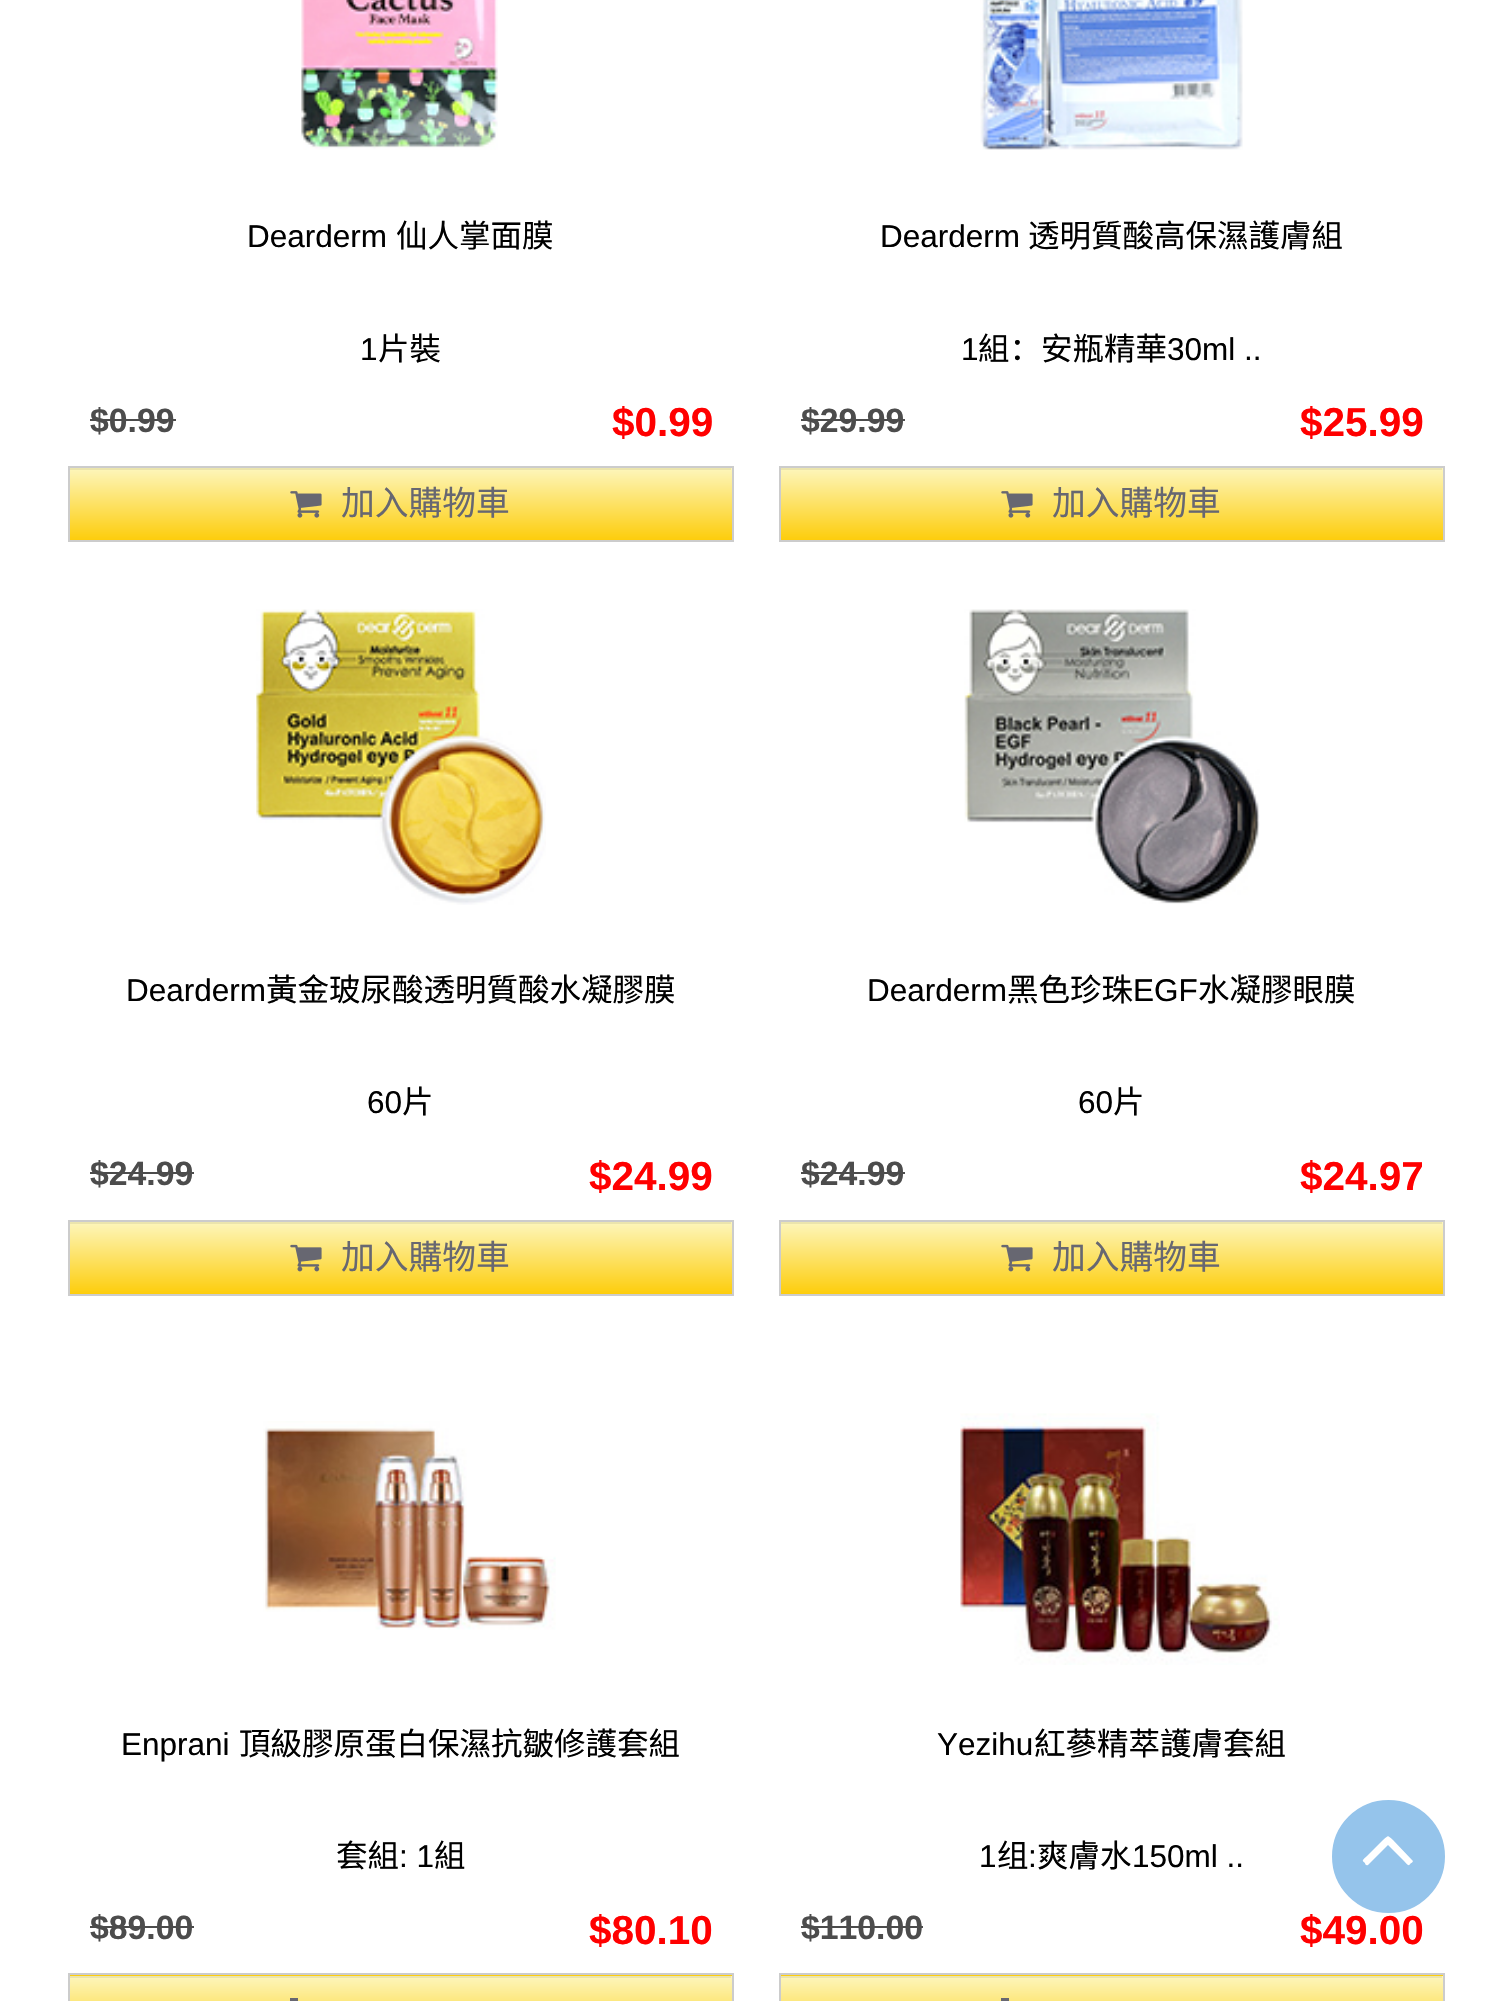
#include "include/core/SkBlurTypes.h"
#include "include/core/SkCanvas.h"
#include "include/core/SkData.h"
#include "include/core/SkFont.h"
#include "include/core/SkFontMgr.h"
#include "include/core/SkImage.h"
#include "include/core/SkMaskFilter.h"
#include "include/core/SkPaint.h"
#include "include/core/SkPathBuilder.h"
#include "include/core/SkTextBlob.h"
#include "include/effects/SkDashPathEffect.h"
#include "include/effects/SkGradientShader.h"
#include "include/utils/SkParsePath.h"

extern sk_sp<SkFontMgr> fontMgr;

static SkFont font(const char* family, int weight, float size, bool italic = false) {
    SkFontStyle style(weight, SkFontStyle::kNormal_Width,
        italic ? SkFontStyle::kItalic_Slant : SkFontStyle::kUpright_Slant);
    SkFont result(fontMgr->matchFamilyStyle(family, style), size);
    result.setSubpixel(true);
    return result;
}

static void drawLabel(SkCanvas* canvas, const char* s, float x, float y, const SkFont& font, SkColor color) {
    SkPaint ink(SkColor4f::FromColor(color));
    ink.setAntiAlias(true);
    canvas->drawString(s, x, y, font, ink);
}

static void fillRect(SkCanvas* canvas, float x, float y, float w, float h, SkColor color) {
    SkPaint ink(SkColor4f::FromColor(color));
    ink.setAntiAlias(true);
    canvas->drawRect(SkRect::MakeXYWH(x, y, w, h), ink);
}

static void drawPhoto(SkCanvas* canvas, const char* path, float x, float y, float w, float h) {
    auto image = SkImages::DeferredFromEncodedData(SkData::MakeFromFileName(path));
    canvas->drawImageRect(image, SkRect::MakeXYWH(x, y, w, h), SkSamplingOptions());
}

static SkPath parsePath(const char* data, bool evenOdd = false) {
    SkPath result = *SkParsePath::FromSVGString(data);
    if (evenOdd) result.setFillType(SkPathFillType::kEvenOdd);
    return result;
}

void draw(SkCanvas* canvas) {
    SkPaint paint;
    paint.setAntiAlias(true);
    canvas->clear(0xFFFFFFFF);
    drawPhoto(canvas, "assets/img1.png", 301, 0, 197, 150);
    SkFont font1 = font("Liberation Sans", 400, 31.5f);
    drawLabel(canvas, "Dearderm", 247, 247, font1, 0xFF000000);
    SkFont font2 = font("Noto Sans CJK SC", 400, 31.5f);
    drawLabel(canvas, "仙人掌面膜", 396, 247, font2, 0xFF000000);
    drawLabel(canvas, "1", 360, 360, font1, 0xFF000000);
    drawLabel(canvas, "片裝", 378, 360, font2, 0xFF000000);
    SkFont font3 = font("Liberation Sans", 700, 33.75f);
    drawLabel(canvas, "$0.99", 90, 432, font3, 0xFF4C4C4C);
    fillRect(canvas, 90, 419, 86, 2, 0xFF4C4C4C);
    SkFont font4 = font("Liberation Sans", 700, 40.5f);
    drawLabel(canvas, "$0.99", 612, 436, font4, 0xFFFF0000);
    {
        const SkColor colors[] = {0xFFFDF6BC, 0xFFFDCD0C};
        const float stops[] = {0, 1};
        const SkPoint ends[] = {{401, 468}, {401, 540}};
        paint.setShader(SkGradientShader::MakeLinear(ends, colors, stops, 2, SkTileMode::kClamp));
        paint.setAlpha(255);
    }
    canvas->drawRect(SkRect::MakeXYWH(70, 468, 662, 72), paint);
    {
        const SkColor colors[] = {0xFFEBE5AF, 0xFFEBBF0B};
        const float stops[] = {0, 1};
        const SkPoint ends[] = {{401, 468}, {401, 540}};
        paint.setShader(SkGradientShader::MakeLinear(ends, colors, stops, 2, SkTileMode::kClamp));
        paint.setAlpha(255);
    }
    canvas->drawRect(SkRect::MakeXYWH(70, 468, 661, 2), paint);
    paint.setStroke(true);
    paint.setStrokeWidth(2);
    paint.setShader(nullptr);
    paint.setColor(0xFFCCCCCC);
    canvas->drawRect(SkRect::MakeXYWH(69, 467, 664, 74), paint);
    drawPhoto(canvas, "assets/img2.png", 290, 491, 32, 27);
    SkFont font5 = font("Noto Sans CJK SC", 400, 33.75f);
    drawLabel(canvas, "加入購物車", 341, 515, font5, 0xFF676771);
    drawPhoto(canvas, "assets/img3.png", 980, 0, 263, 150);
    drawLabel(canvas, "Dearderm", 880, 247, font1, 0xFF000000);
    drawLabel(canvas, "透明質酸高保濕護膚組", 1028, 247, font2, 0xFF000000);
    drawLabel(canvas, "1", 961, 360, font1, 0xFF000000);
    drawLabel(canvas, "組：安瓶精華", 978, 360, font2, 0xFF000000);
    drawLabel(canvas, "30ml ..", 1167, 360, font1, 0xFF000000);
    drawLabel(canvas, "$29.99", 801, 432, font3, 0xFF4C4C4C);
    fillRect(canvas, 801, 419, 104, 2, 0xFF4C4C4C);
    drawLabel(canvas, "$25.99", 1300, 436, font4, 0xFFFF0000);
    paint.setStroke(false);
    {
        const SkColor colors[] = {0xFFFDF6BC, 0xFFFDCD0C};
        const float stops[] = {0, 1};
        const SkPoint ends[] = {{1112, 468}, {1112, 540}};
        paint.setShader(SkGradientShader::MakeLinear(ends, colors, stops, 2, SkTileMode::kClamp));
        paint.setAlpha(255);
    }
    canvas->drawRect(SkRect::MakeXYWH(781, 468, 662, 72), paint);
    {
        const SkColor colors[] = {0xFFEBE5AF, 0xFFEBBF0B};
        const float stops[] = {0, 1};
        const SkPoint ends[] = {{1112, 468}, {1112, 540}};
        paint.setShader(SkGradientShader::MakeLinear(ends, colors, stops, 2, SkTileMode::kClamp));
        paint.setAlpha(255);
    }
    canvas->drawRect(SkRect::MakeXYWH(781, 468, 661, 2), paint);
    paint.setStroke(true);
    paint.setShader(nullptr);
    paint.setColor(0xFFCCCCCC);
    canvas->drawRect(SkRect::MakeXYWH(780, 467, 664, 74), paint);
    drawPhoto(canvas, "assets/img2.png", 1001, 491, 32, 27);
    drawLabel(canvas, "加入購物車", 1052, 515, font5, 0xFF676771);
    drawPhoto(canvas, "assets/img4.png", 256, 609, 290, 296);
    drawLabel(canvas, "Dearderm", 126, 1001, font1, 0xFF000000);
    drawLabel(canvas, "黃金玻尿酸透明質酸水凝膠膜", 266, 1001, font2, 0xFF000000);
    drawLabel(canvas, "60", 367, 1113, font1, 0xFF000000);
    drawLabel(canvas, "片", 402, 1113, font2, 0xFF000000);
    drawLabel(canvas, "$24.99", 90, 1185, font3, 0xFF4C4C4C);
    fillRect(canvas, 90, 1172, 104, 2, 0xFF4C4C4C);
    drawLabel(canvas, "$24.99", 589, 1190, font4, 0xFFFF0000);
    paint.setStroke(false);
    {
        const SkColor colors[] = {0xFFFDF6BC, 0xFFFDCD0C};
        const float stops[] = {0, 1};
        const SkPoint ends[] = {{401, 1222}, {401, 1294}};
        paint.setShader(SkGradientShader::MakeLinear(ends, colors, stops, 2, SkTileMode::kClamp));
        paint.setAlpha(255);
    }
    canvas->drawRect(SkRect::MakeXYWH(70, 1222, 662, 72), paint);
    {
        const SkColor colors[] = {0xFFEBE5AF, 0xFFEBBF0B};
        const float stops[] = {0, 1};
        const SkPoint ends[] = {{401, 1222}, {401, 1294}};
        paint.setShader(SkGradientShader::MakeLinear(ends, colors, stops, 2, SkTileMode::kClamp));
        paint.setAlpha(255);
    }
    canvas->drawRect(SkRect::MakeXYWH(70, 1222, 661, 2), paint);
    paint.setStroke(true);
    paint.setShader(nullptr);
    paint.setColor(0xFFCCCCCC);
    canvas->drawRect(SkRect::MakeXYWH(69, 1221, 664, 74), paint);
    drawPhoto(canvas, "assets/img5.png", 290, 1244, 32, 28);
    drawLabel(canvas, "加入購物車", 341, 1269, font5, 0xFF676771);
    drawPhoto(canvas, "assets/img6.png", 964, 609, 296, 295);
    drawLabel(canvas, "Dearderm", 867, 1001, font1, 0xFF000000);
    drawLabel(canvas, "黑色珍珠", 1007, 1001, font2, 0xFF000000);
    drawLabel(canvas, "EGF", 1133, 1001, font1, 0xFF000000);
    drawLabel(canvas, "水凝膠眼膜", 1198, 1001, font2, 0xFF000000);
    drawLabel(canvas, "60", 1078, 1113, font1, 0xFF000000);
    drawLabel(canvas, "片", 1113, 1113, font2, 0xFF000000);
    drawLabel(canvas, "$24.99", 801, 1185, font3, 0xFF4C4C4C);
    fillRect(canvas, 801, 1172, 104, 2, 0xFF4C4C4C);
    drawLabel(canvas, "$24.97", 1300, 1190, font4, 0xFFFF0000);
    paint.setStroke(false);
    {
        const SkColor colors[] = {0xFFFDF6BC, 0xFFFDCD0C};
        const float stops[] = {0, 1};
        const SkPoint ends[] = {{1112, 1222}, {1112, 1294}};
        paint.setShader(SkGradientShader::MakeLinear(ends, colors, stops, 2, SkTileMode::kClamp));
        paint.setAlpha(255);
    }
    canvas->drawRect(SkRect::MakeXYWH(781, 1222, 662, 72), paint);
    {
        const SkColor colors[] = {0xFFEBE5AF, 0xFFEBBF0B};
        const float stops[] = {0, 1};
        const SkPoint ends[] = {{1112, 1222}, {1112, 1294}};
        paint.setShader(SkGradientShader::MakeLinear(ends, colors, stops, 2, SkTileMode::kClamp));
        paint.setAlpha(255);
    }
    canvas->drawRect(SkRect::MakeXYWH(781, 1222, 661, 2), paint);
    paint.setStroke(true);
    paint.setShader(nullptr);
    paint.setColor(0xFFCCCCCC);
    canvas->drawRect(SkRect::MakeXYWH(780, 1221, 664, 74), paint);
    drawPhoto(canvas, "assets/img5.png", 1001, 1244, 32, 28);
    drawLabel(canvas, "加入購物車", 1052, 1269, font5, 0xFF676771);
    drawPhoto(canvas, "assets/img7.png", 263, 1421, 293, 209);
    drawLabel(canvas, "Enprani", 121, 1755, font1, 0xFF000000);
    drawLabel(canvas, "頂級膠原蛋白保濕抗皺修護套組", 239, 1755, font2, 0xFF000000);
    drawLabel(canvas, "套組", 336, 1867, font2, 0xFF000000);
    drawLabel(canvas, ": 1", 399, 1867, font1, 0xFF000000);
    drawLabel(canvas, "組", 434, 1867, font2, 0xFF000000);
    drawLabel(canvas, "$89.00", 90, 1939, font3, 0xFF4C4C4C);
    fillRect(canvas, 90, 1926, 104, 2, 0xFF4C4C4C);
    drawLabel(canvas, "$80.10", 589, 1944, font4, 0xFFFF0000);
    paint.setStroke(false);
    {
        const SkColor colors[] = {0xFFFDF6BC, 0xFFFDCD0C};
        const float stops[] = {0, 1};
        const SkPoint ends[] = {{401, 1904}, {401, 1976}};
        paint.setShader(SkGradientShader::MakeLinear(ends, colors, stops, 2, SkTileMode::kClamp));
        paint.setAlpha(255);
    }
    canvas->drawRect(SkRect::MakeXYWH(68, 1975, 666, 1), paint);
    {
        const SkColor colors[] = {0xFFFDF6BC, 0xFFFDCD0C};
        const float stops[] = {0, 1};
        const SkPoint ends[] = {{401, 1976}, {401, 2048}};
        paint.setShader(SkGradientShader::MakeLinear(ends, colors, stops, 2, SkTileMode::kClamp));
        paint.setAlpha(255);
    }
    canvas->drawRect(SkRect::MakeXYWH(70, 1976, 662, 25), paint);
    {
        const SkColor colors[] = {0xFFEBE5AF, 0xFFEBBF0B};
        const float stops[] = {0, 1};
        const SkPoint ends[] = {{401, 1976}, {401, 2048}};
        paint.setShader(SkGradientShader::MakeLinear(ends, colors, stops, 2, SkTileMode::kClamp));
        paint.setAlpha(255);
    }
    canvas->drawRect(SkRect::MakeXYWH(70, 1976, 661, 2), paint);
    paint.setStroke(true);
    paint.setShader(nullptr);
    paint.setColor(0xFFCCCCCC);
    canvas->drawRect(SkRect::MakeXYWH(69, 1974, 664, 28), paint);
    fillRect(canvas, 290, 1998, 8, 3, 0xFF676771);
    drawPhoto(canvas, "assets/img8.png", 960, 1413, 320, 252);
    drawLabel(canvas, "Yezihu", 937, 1755, font1, 0xFF000000);
    drawLabel(canvas, "紅蔘精萃護膚套組", 1034, 1755, font2, 0xFF000000);
    drawLabel(canvas, "1", 979, 1867, font1, 0xFF000000);
    drawLabel(canvas, "组", 997, 1867, font2, 0xFF000000);
    drawLabel(canvas, ":", 1028, 1867, font1, 0xFF000000);
    drawLabel(canvas, "爽膚水", 1037, 1867, font2, 0xFF000000);
    drawLabel(canvas, "150ml ..", 1132, 1867, font1, 0xFF000000);
    drawLabel(canvas, "$110.00", 801, 1939, font3, 0xFF4C4C4C);
    fillRect(canvas, 801, 1926, 122, 2, 0xFF4C4C4C);
    drawLabel(canvas, "$49.00", 1300, 1944, font4, 0xFFFF0000);
    paint.setStroke(false);
    {
        const SkColor colors[] = {0xFFFDF6BC, 0xFFFDCD0C};
        const float stops[] = {0, 1};
        const SkPoint ends[] = {{1112, 1904}, {1112, 1976}};
        paint.setShader(SkGradientShader::MakeLinear(ends, colors, stops, 2, SkTileMode::kClamp));
        paint.setAlpha(255);
    }
    canvas->drawRect(SkRect::MakeXYWH(779, 1975, 666, 1), paint);
    {
        const SkColor colors[] = {0xFFFDF6BC, 0xFFFDCD0C};
        const float stops[] = {0, 1};
        const SkPoint ends[] = {{1112, 1976}, {1112, 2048}};
        paint.setShader(SkGradientShader::MakeLinear(ends, colors, stops, 2, SkTileMode::kClamp));
        paint.setAlpha(255);
    }
    canvas->drawRect(SkRect::MakeXYWH(781, 1976, 662, 25), paint);
    {
        const SkColor colors[] = {0xFFEBE5AF, 0xFFEBBF0B};
        const float stops[] = {0, 1};
        const SkPoint ends[] = {{1112, 1976}, {1112, 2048}};
        paint.setShader(SkGradientShader::MakeLinear(ends, colors, stops, 2, SkTileMode::kClamp));
        paint.setAlpha(255);
    }
    canvas->drawRect(SkRect::MakeXYWH(781, 1976, 661, 2), paint);
    paint.setStroke(true);
    paint.setShader(nullptr);
    paint.setColor(0xFFCCCCCC);
    canvas->drawRect(SkRect::MakeXYWH(780, 1974, 664, 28), paint);
    fillRect(canvas, 1001, 1998, 8, 3, 0xFF676771);
    paint.setStroke(false);
    paint.setColor(0xFF95C4EB);
    canvas->drawCircle(1388.5f, 1856.5f, 55.5f, paint);
    paint.setStroke(true);
    canvas->drawCircle(1388.5f, 1856.5f, 55.5f, paint);
    paint.setStroke(false);
    paint.setColor(0xFFFFFFFF);
    canvas->drawPath(parsePath("M1412 1860C1414 1861 1412 1863 1411 1863C1408 1867 1408 1865 1404 1861L1388 1845L1368 1865C1366 1866 1365 1864 1365 1863C1361 1860 1363 1860 1367 1856L1383 1840C1389 1835 1387 1835 1393 1840Z"), paint);
}
